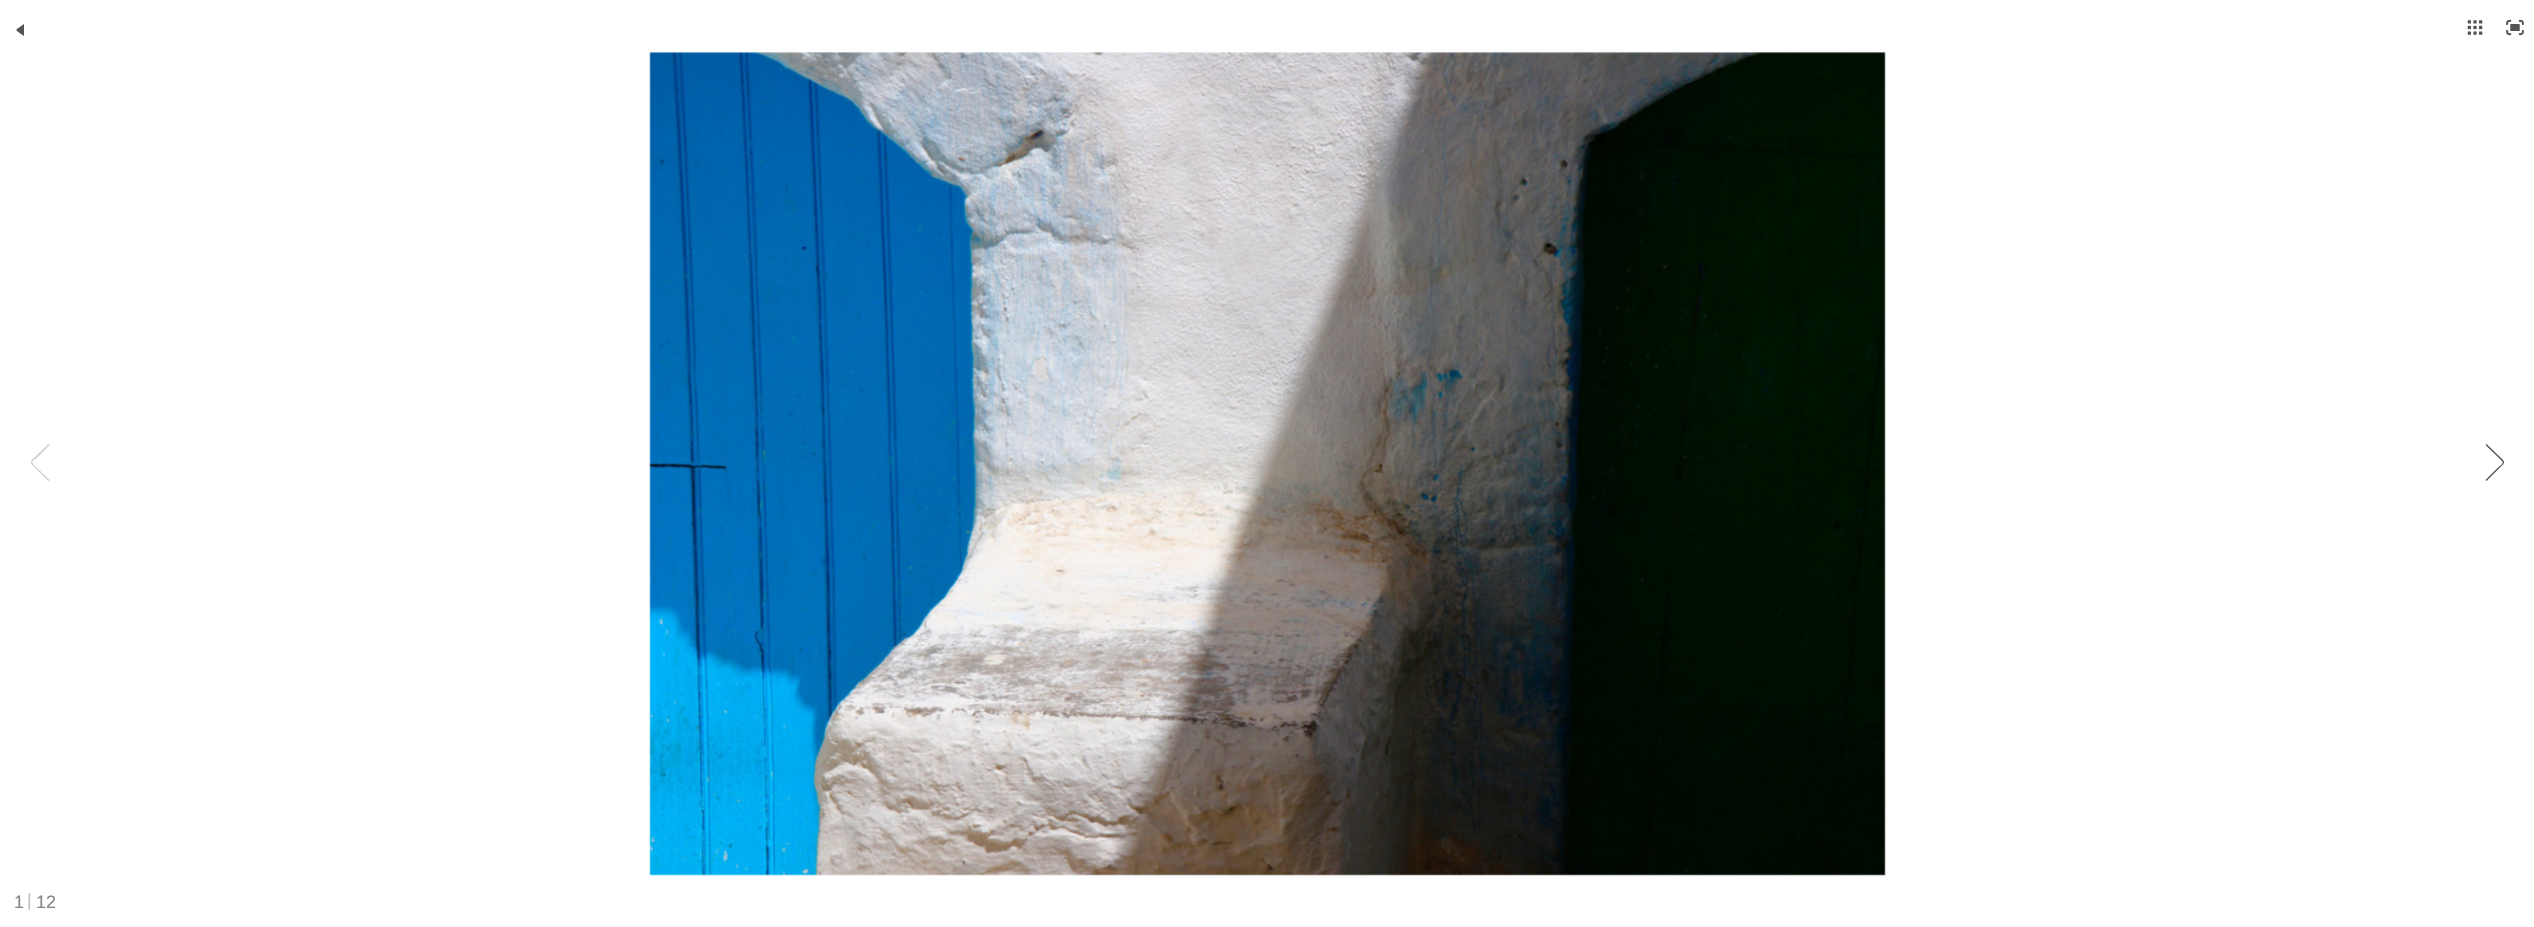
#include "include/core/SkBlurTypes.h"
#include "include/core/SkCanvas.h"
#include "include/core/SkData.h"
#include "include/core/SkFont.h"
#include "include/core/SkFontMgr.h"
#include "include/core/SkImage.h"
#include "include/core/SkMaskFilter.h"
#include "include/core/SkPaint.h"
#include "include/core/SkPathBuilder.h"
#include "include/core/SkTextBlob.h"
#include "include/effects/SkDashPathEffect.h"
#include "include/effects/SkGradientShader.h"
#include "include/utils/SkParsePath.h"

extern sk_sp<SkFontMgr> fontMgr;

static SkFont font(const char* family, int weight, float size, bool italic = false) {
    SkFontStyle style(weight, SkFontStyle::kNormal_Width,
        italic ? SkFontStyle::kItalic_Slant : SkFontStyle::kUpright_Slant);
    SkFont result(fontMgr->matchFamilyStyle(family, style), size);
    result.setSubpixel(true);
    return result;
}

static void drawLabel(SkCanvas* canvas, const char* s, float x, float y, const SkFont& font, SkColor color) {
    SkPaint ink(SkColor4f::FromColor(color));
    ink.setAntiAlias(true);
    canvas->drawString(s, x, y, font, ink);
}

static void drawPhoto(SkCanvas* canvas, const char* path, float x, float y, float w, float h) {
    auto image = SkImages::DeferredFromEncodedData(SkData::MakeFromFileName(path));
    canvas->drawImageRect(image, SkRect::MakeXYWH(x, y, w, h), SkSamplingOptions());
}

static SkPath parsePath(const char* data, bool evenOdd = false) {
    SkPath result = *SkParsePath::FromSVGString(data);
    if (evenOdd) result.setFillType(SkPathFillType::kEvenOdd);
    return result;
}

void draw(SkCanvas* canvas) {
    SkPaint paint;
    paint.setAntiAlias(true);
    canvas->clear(0xFFFFFFFF);
    paint.setColor(0xFF555555);
    canvas->drawPath(parsePath("M24 36C14 28.5 14 31.5 24 24Z"), paint);
    drawPhoto(canvas, "assets/img1.png", 2467, 20, 16, 15);
    drawPhoto(canvas, "assets/img2.png", 2506, 19, 18, 17);
    paint.setColor(0xFFCCCCCC);
    canvas->drawPath(parsePath("M48.5 481L31.5 464C29.5 461.5 33 459 34.5 457.5L48.5 444L49.5 445L38.5 456C32 462 30 461 35.5 466.5L49.5 480Z"), paint);
    drawPhoto(canvas, "assets/img3.png", 649, 52, 1237, 824);
    paint.setColor(0xFF555555);
    canvas->drawPath(parsePath("M2486.5 444L2500.5 457.5C2502 459 2505.5 461.5 2503.5 464L2486.5 481L2485.5 480L2496.5 469C2503 463 2505 464 2499.5 458.5L2485.5 445Z"), paint);
    SkFont font1 = font("Liberation Sans", 400, 18);
    drawLabel(canvas, "1", 14, 908, font1, 0xFF858585);
    drawLabel(canvas, "|", 27, 906, font1, 0xFFC2C2C2);
    drawLabel(canvas, "12", 36, 908, font1, 0xFF858585);
}
